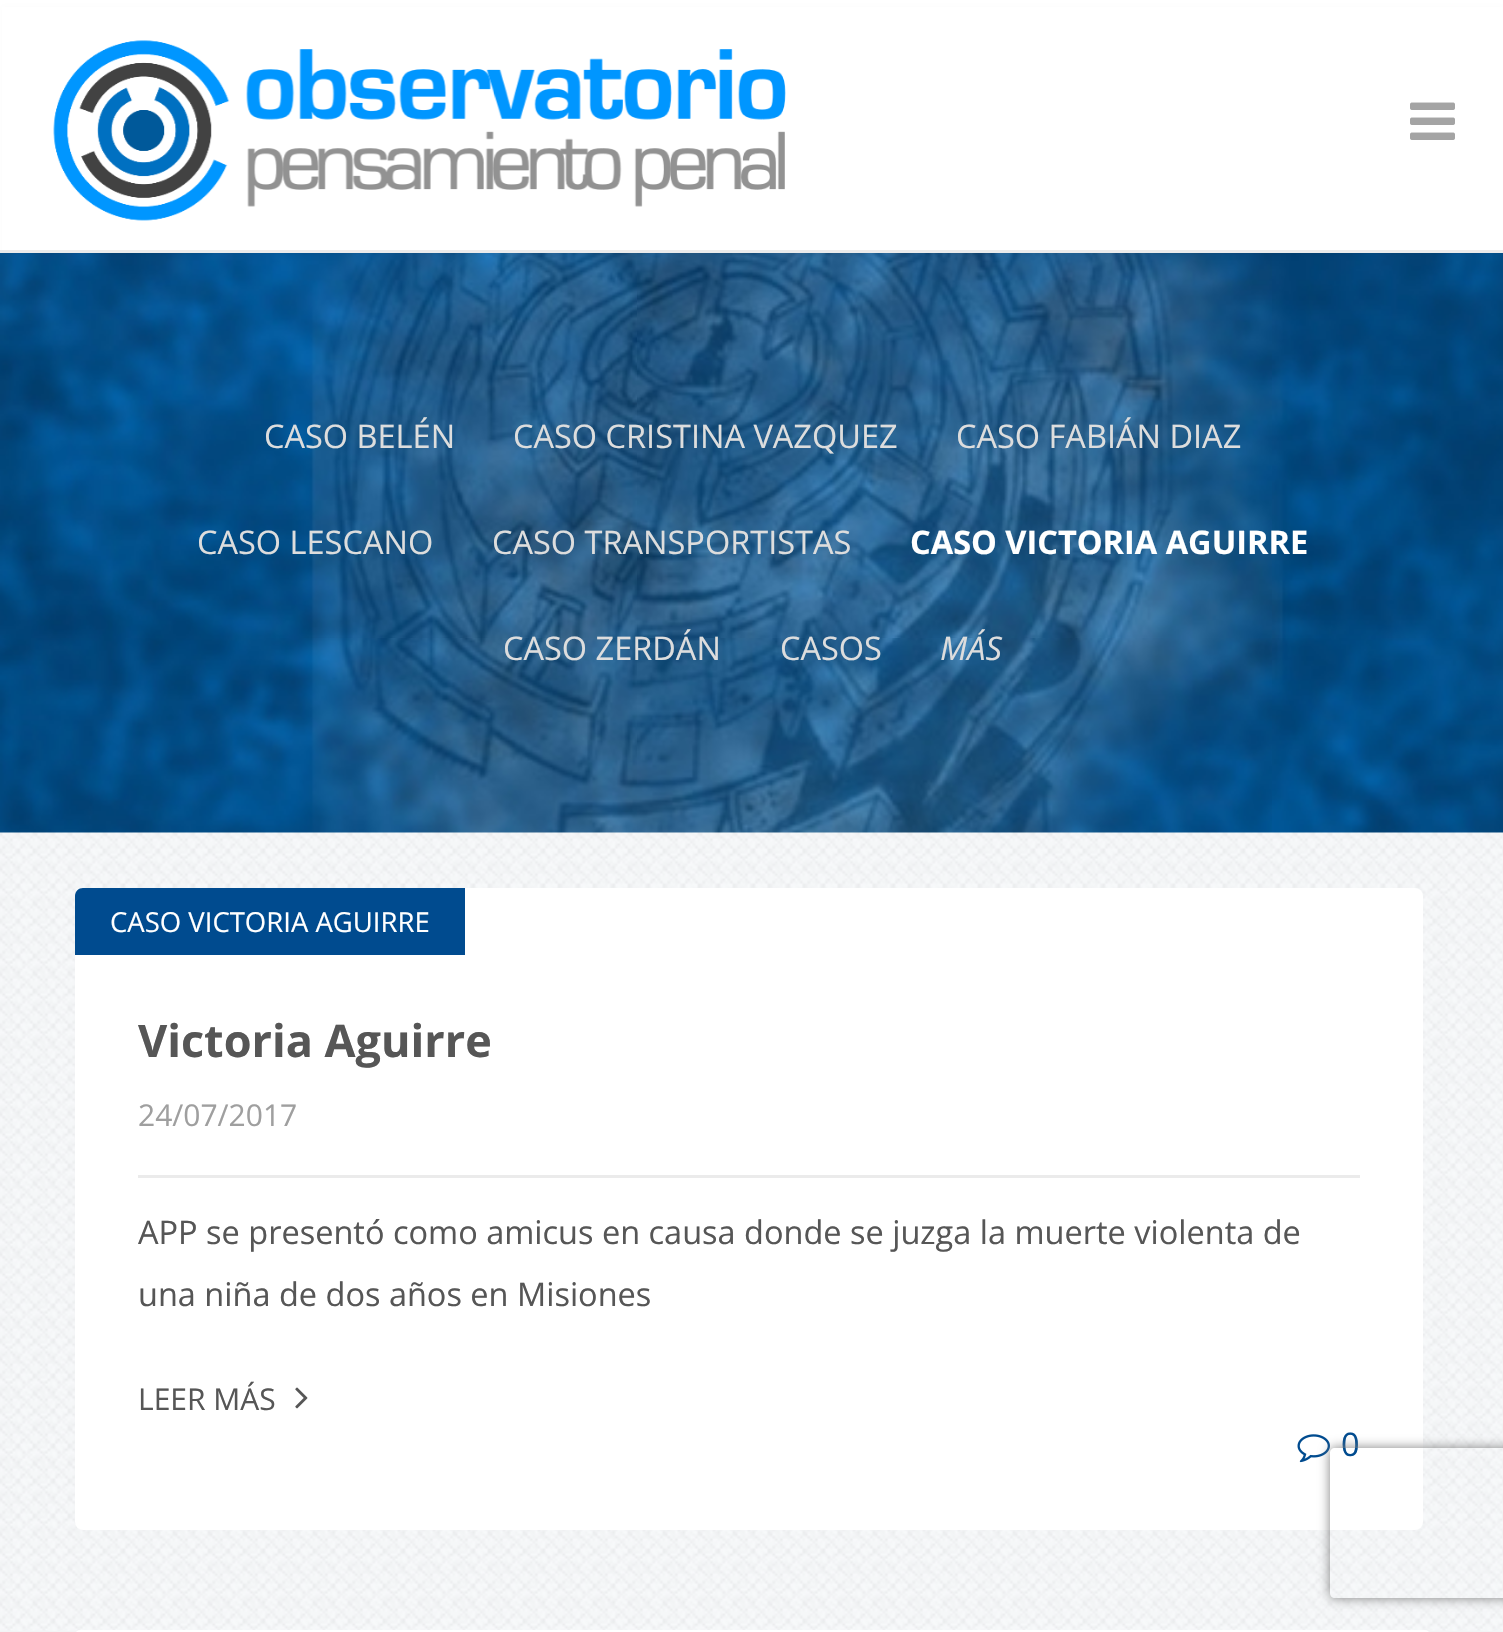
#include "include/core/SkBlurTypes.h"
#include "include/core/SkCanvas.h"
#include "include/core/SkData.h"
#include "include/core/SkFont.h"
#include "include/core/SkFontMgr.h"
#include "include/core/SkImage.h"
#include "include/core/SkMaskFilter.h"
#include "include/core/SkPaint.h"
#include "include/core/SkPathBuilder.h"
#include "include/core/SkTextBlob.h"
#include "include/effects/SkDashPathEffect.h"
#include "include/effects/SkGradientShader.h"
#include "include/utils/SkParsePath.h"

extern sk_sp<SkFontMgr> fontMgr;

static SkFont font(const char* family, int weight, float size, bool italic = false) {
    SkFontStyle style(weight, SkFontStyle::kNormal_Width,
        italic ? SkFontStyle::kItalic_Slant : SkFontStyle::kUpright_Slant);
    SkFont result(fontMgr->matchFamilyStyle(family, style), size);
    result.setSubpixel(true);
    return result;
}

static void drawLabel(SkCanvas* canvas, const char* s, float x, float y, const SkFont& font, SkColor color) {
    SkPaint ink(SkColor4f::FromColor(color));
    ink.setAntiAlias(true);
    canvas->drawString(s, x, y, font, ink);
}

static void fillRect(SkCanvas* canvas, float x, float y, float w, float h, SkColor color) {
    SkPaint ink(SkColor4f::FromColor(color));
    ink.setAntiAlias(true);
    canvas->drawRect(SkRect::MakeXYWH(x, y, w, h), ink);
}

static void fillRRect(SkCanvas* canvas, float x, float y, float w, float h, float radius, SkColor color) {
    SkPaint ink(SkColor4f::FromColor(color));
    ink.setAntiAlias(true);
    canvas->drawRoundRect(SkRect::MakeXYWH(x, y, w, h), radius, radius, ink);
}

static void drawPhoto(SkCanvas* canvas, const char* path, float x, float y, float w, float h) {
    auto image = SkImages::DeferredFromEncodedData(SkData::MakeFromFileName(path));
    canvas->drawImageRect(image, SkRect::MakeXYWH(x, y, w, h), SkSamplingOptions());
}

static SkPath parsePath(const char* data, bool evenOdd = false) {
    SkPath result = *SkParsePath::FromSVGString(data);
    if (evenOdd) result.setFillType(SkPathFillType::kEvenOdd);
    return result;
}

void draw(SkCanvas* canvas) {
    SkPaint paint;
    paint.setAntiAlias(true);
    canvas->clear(0xFFFFFFFF);
    drawPhoto(canvas, "assets/img3.png", 0, 253, 1503, 580);
    paint.setColor(0x14000000);
    paint.setMaskFilter(SkMaskFilter::MakeBlur(kNormal_SkBlurStyle, 2.5f));
    canvas->drawRect(SkRect::MakeXYWH(5, 10, 1495, 243), paint);
    paint.setMaskFilter(nullptr);
    fillRect(canvas, 2, 7, 1501, 243, 0xFFFFFFFF);
    fillRect(canvas, 0, 250, 1503, 3, 0xFFEBEBEB);
    drawPhoto(canvas, "assets/img1.png", 53, 40, 733, 181);
    drawPhoto(canvas, "assets/img2.png", 1410, 102, 45, 38);
    SkFont font1 = font("Open Sans", 400, 32.5f);
    drawLabel(canvas, "CASO BELÉN", 264, 448, font1, 0xFFDDDDDD);
    drawLabel(canvas, "CASO CRISTINA VAZQUEZ", 513, 448, font1, 0xFFDDDDDD);
    drawLabel(canvas, "CASO FABIÁN DIAZ", 956, 448, font1, 0xFFDDDDDD);
    drawLabel(canvas, "CASO LESCANO", 197, 554, font1, 0xFFDDDDDD);
    drawLabel(canvas, "CASO TRANSPORTISTAS", 492, 554, font1, 0xFFDDDDDD);
    SkFont font2 = font("Open Sans", 700, 32.5f);
    drawLabel(canvas, "CASO VICTORIA AGUIRRE", 910, 554, font2, 0xFFFFFFFF);
    drawLabel(canvas, "CASO ZERDÁN", 503, 660, font1, 0xFFDDDDDD);
    drawLabel(canvas, "CASOS", 780, 660, font1, 0xFFDDDDDD);
    SkFont font3 = font("Open Sans", 400, 32.5f, true);
    drawLabel(canvas, "MÁS", 940, 660, font3, 0xFFDDDDDD);
    fillRect(canvas, 0, 1631, 1503, 1, 0xFFF2F4F5);
    drawPhoto(canvas, "assets/img4.png", 0, 832, 1503, 799);
    fillRRect(canvas, 75, 888, 1348, 642, 8, 0xFFFFFFFF);
    paint.setColor(0xFF004B8F);
    canvas->drawPath(parsePath("M83 888H465V955H75V896C75 891.5 78.5 888 83 888Z"), paint);
    SkFont font4 = font("Open Sans", 400, 27.5f);
    drawLabel(canvas, "CASO VICTORIA AGUIRRE", 110, 932, font4, 0xFFFFFFFF);
    SkFont font5 = font("Open Sans", 700, 45);
    drawLabel(canvas, "Victoria Aguirre", 138, 1057, font5, 0xFF565656);
    SkFont font6 = font("Open Sans", 400, 30);
    drawLabel(canvas, "24/07/2017", 138, 1126, font6, 0xFF9F9F9F);
    fillRect(canvas, 138, 1175, 1222, 3, 0xFFEBEBEB);
    drawLabel(canvas, "APP se presentó como amicus en causa donde se juzga la muerte violenta de", 138, 1244, font1, 0xFF565656);
    drawLabel(canvas, "una niña de dos años en Misiones", 138, 1306, font1, 0xFF565656);
    drawLabel(canvas, "LEER MÁS", 138, 1410, font6, 0xFF565656);
    drawPhoto(canvas, "assets/img5.png", 295, 1387, 13, 22);
    drawPhoto(canvas, "assets/img6.png", 1297, 1434, 33, 29);
    drawLabel(canvas, "0", 1341, 1456, font1, 0xFF004B8F);
    fillRRect(canvas, 75, 1630, 1355, 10, 8, 0xFFFFFFFF);
    canvas->save();
    canvas->clipPath(parsePath("M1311 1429H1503V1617H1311ZM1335 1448H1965C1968 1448 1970 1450 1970 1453V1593C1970 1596 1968 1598 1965 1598H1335C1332 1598 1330 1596 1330 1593V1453C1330 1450 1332 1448 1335 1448Z", true), true);
    paint.setColor(0xFF808080);
    paint.setMaskFilter(SkMaskFilter::MakeBlur(kNormal_SkBlurStyle, 6));
    canvas->drawRoundRect(SkRect::MakeXYWH(1330, 1448, 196, 150), 5, 5, paint);
    paint.setMaskFilter(nullptr);
    canvas->restore();
}
